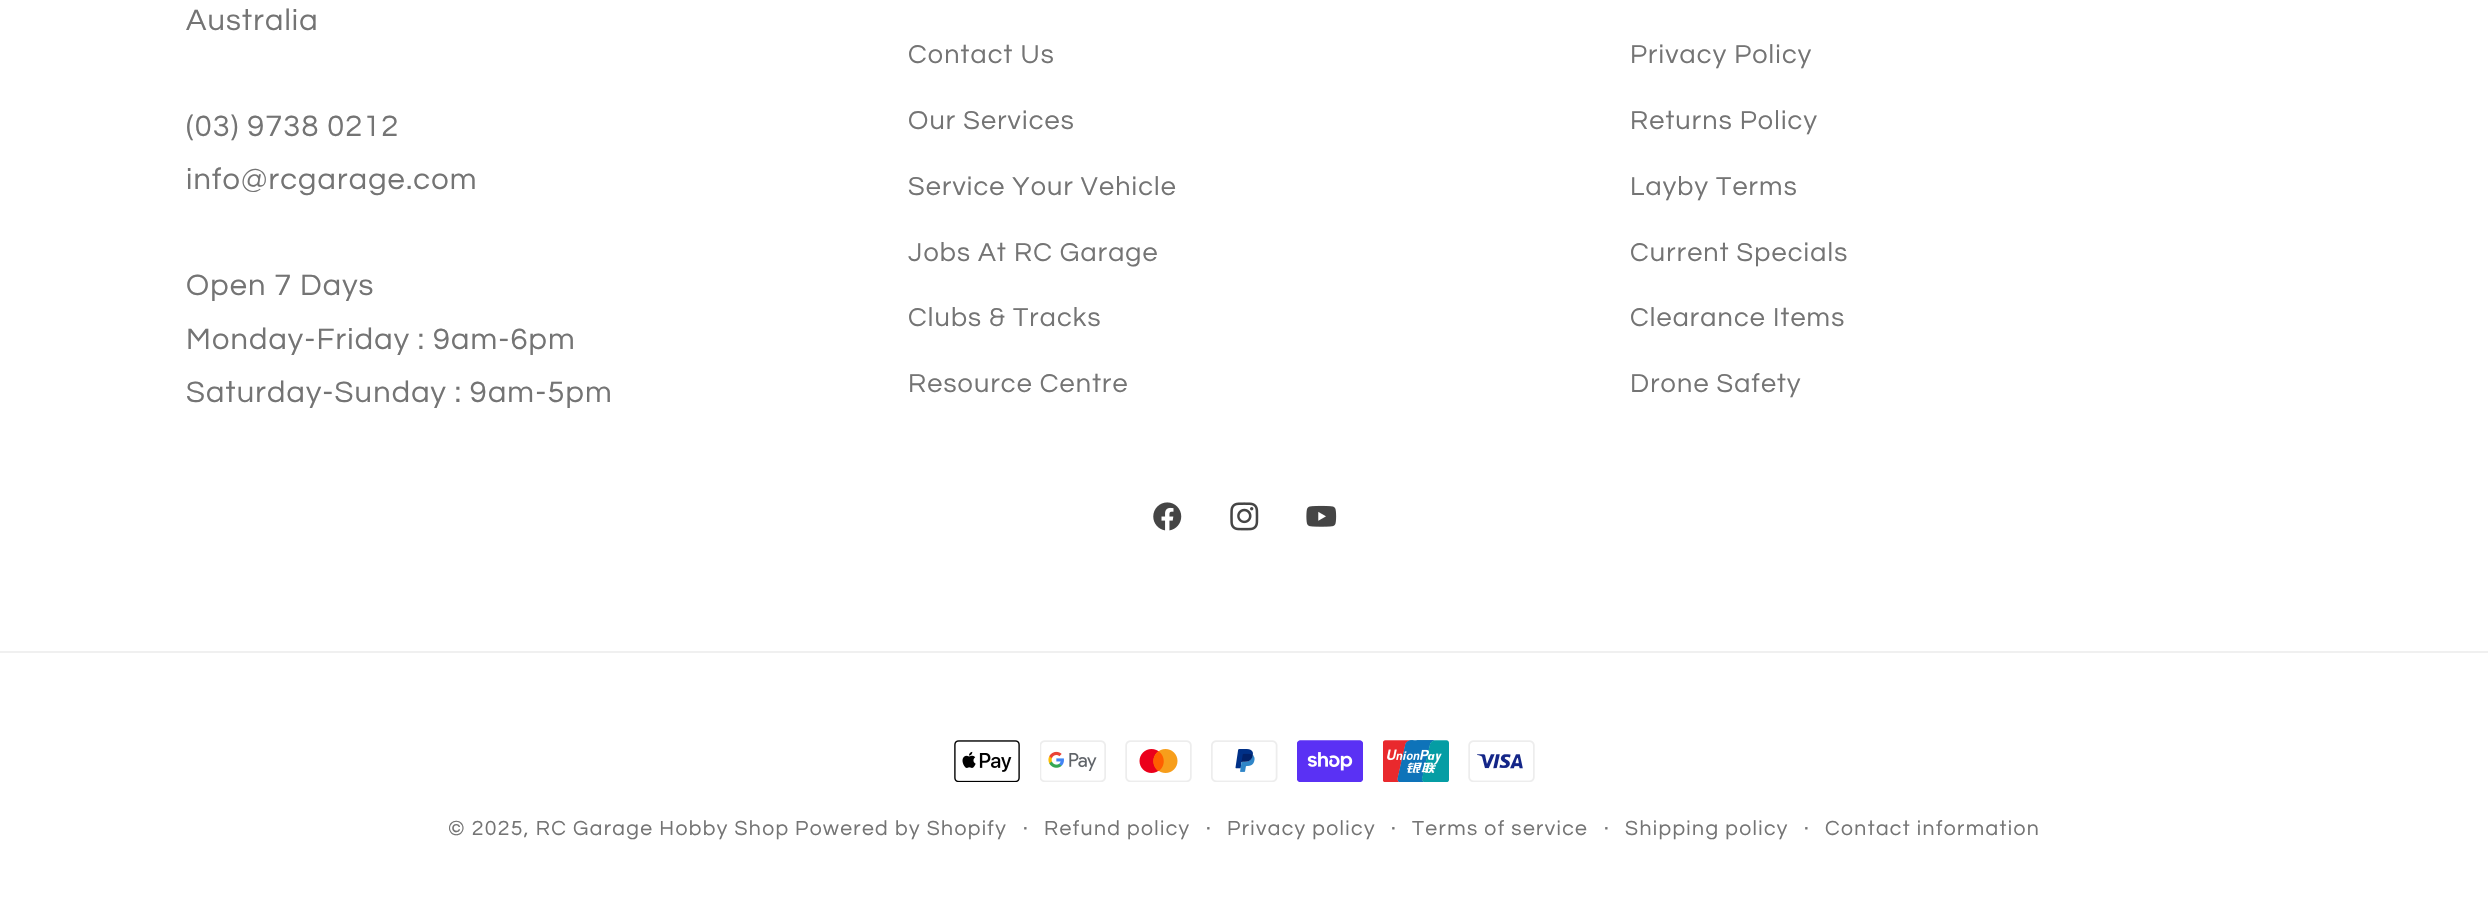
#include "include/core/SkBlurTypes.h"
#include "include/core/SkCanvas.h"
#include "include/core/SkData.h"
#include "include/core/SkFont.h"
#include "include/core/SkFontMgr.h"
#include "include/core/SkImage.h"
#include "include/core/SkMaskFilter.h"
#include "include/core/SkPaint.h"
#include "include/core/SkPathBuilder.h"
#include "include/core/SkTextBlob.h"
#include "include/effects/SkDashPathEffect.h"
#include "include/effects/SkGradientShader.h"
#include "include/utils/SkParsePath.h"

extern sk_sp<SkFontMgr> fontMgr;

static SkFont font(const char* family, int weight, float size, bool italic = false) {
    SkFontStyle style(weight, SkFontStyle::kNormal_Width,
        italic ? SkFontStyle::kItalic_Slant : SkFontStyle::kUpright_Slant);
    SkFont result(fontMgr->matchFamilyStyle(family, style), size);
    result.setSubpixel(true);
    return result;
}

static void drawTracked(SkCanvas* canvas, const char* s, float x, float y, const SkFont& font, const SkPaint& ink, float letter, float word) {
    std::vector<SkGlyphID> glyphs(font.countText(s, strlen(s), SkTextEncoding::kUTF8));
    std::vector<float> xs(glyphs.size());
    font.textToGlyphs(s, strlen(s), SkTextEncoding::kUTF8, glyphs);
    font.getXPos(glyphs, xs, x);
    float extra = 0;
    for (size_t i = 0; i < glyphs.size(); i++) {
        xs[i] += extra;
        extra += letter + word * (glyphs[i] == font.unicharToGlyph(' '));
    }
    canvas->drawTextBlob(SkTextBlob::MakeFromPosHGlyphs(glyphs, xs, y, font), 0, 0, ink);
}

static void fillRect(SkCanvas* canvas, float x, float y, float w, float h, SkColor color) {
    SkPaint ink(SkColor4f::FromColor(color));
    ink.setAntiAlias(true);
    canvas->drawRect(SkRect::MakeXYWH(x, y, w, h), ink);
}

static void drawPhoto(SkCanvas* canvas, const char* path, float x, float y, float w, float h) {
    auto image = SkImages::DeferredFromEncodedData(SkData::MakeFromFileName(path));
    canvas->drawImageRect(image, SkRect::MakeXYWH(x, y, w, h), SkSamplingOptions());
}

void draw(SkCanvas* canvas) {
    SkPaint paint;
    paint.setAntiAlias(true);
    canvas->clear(0xFFFFFFFF);
    SkFont font1 = font("Questrial", 400, 30.75f);
    paint.setColor(0xFF747474);
    drawTracked(canvas, "Australia", 186, 30, font1, paint, 1.15f, 0);
    drawTracked(canvas, "(03) 9738 0212", 186, 136, font1, paint, 1.15f, 0);
    drawTracked(canvas, "info@rcgarage.com", 186, 189, font1, paint, 1.15f, 0);
    drawTracked(canvas, "Open 7 Days", 186, 295, font1, paint, 1.15f, 0);
    drawTracked(canvas, "Monday-Friday : 9am-6pm", 186, 349, font1, paint, 1.15f, 0);
    drawTracked(canvas, "Saturday-Sunday : 9am-5pm", 186, 402, font1, paint, 1.15f, 0);
    SkFont font2 = font("Questrial", 400, 27);
    drawTracked(canvas, "Contact Us", 908, 63, font2, paint, 1.15f, 0);
    drawTracked(canvas, "Our Services", 908, 129, font2, paint, 1.15f, 0);
    drawTracked(canvas, "Service Your Vehicle", 908, 195, font2, paint, 1.15f, 0);
    drawTracked(canvas, "Jobs At RC Garage", 908, 261, font2, paint, 1.15f, 0);
    drawTracked(canvas, "Clubs & Tracks", 908, 326, font2, paint, 1.15f, 0);
    drawTracked(canvas, "Resource Centre", 908, 392, font2, paint, 1.15f, 0);
    drawTracked(canvas, "Privacy Policy", 1630, 63, font2, paint, 1.15f, 0);
    drawTracked(canvas, "Returns Policy", 1630, 129, font2, paint, 1.15f, 0);
    drawTracked(canvas, "Layby Terms", 1630, 195, font2, paint, 1.15f, 0);
    drawTracked(canvas, "Current Specials", 1630, 261, font2, paint, 1.15f, 0);
    drawTracked(canvas, "Clearance Items", 1630, 326, font2, paint, 1.15f, 0);
    drawTracked(canvas, "Drone Safety", 1630, 392, font2, paint, 1.15f, 0);
    drawPhoto(canvas, "assets/img1.png", 1153, 502, 29, 29);
    drawPhoto(canvas, "assets/img2.png", 1230, 502, 29, 29);
    drawPhoto(canvas, "assets/img3.png", 1306, 505, 31, 22);
    fillRect(canvas, 0, 651, 2488, 2, 0xFFF0F0F0);
    drawPhoto(canvas, "assets/img4.png", 954, 740, 66, 42);
    drawPhoto(canvas, "assets/img5.png", 1040, 740, 66, 42);
    drawPhoto(canvas, "assets/img6.png", 1125, 740, 67, 42);
    drawPhoto(canvas, "assets/img7.png", 1211, 740, 67, 42);
    drawPhoto(canvas, "assets/img8.png", 1297, 740, 66, 42);
    drawPhoto(canvas, "assets/img9.png", 1383, 740, 66, 42);
    drawPhoto(canvas, "assets/img10.png", 1468, 740, 67, 42);
    SkFont font3 = font("Questrial", 400, 21.2f);
    drawTracked(canvas, "© 2025, RC Garage Hobby Shop", 448, 835, font3, paint, 1.35f, 0);
    drawTracked(canvas, "Powered by Shopify", 795, 835, font3, paint, 1.35f, 0);
    SkFont font4 = font("Questrial", 400, 23);
    drawTracked(canvas, "·", 1023, 835, font4, paint, 1.35f, 0);
    drawTracked(canvas, "Refund policy", 1044, 835, font3, paint, 1.35f, 0);
    drawTracked(canvas, "·", 1206, 835, font4, paint, 1.35f, 0);
    drawTracked(canvas, "Privacy policy", 1227, 835, font3, paint, 1.35f, 0);
    drawTracked(canvas, "·", 1391, 835, font4, paint, 1.35f, 0);
    drawTracked(canvas, "Terms of service", 1412, 835, font3, paint, 1.35f, 0);
    drawTracked(canvas, "·", 1604, 835, font4, paint, 1.35f, 0);
    drawTracked(canvas, "Shipping policy", 1625, 835, font3, paint, 1.35f, 0);
    drawTracked(canvas, "·", 1804, 835, font4, paint, 1.35f, 0);
    drawTracked(canvas, "Contact information", 1825, 835, font3, paint, 1.35f, 0);
}
